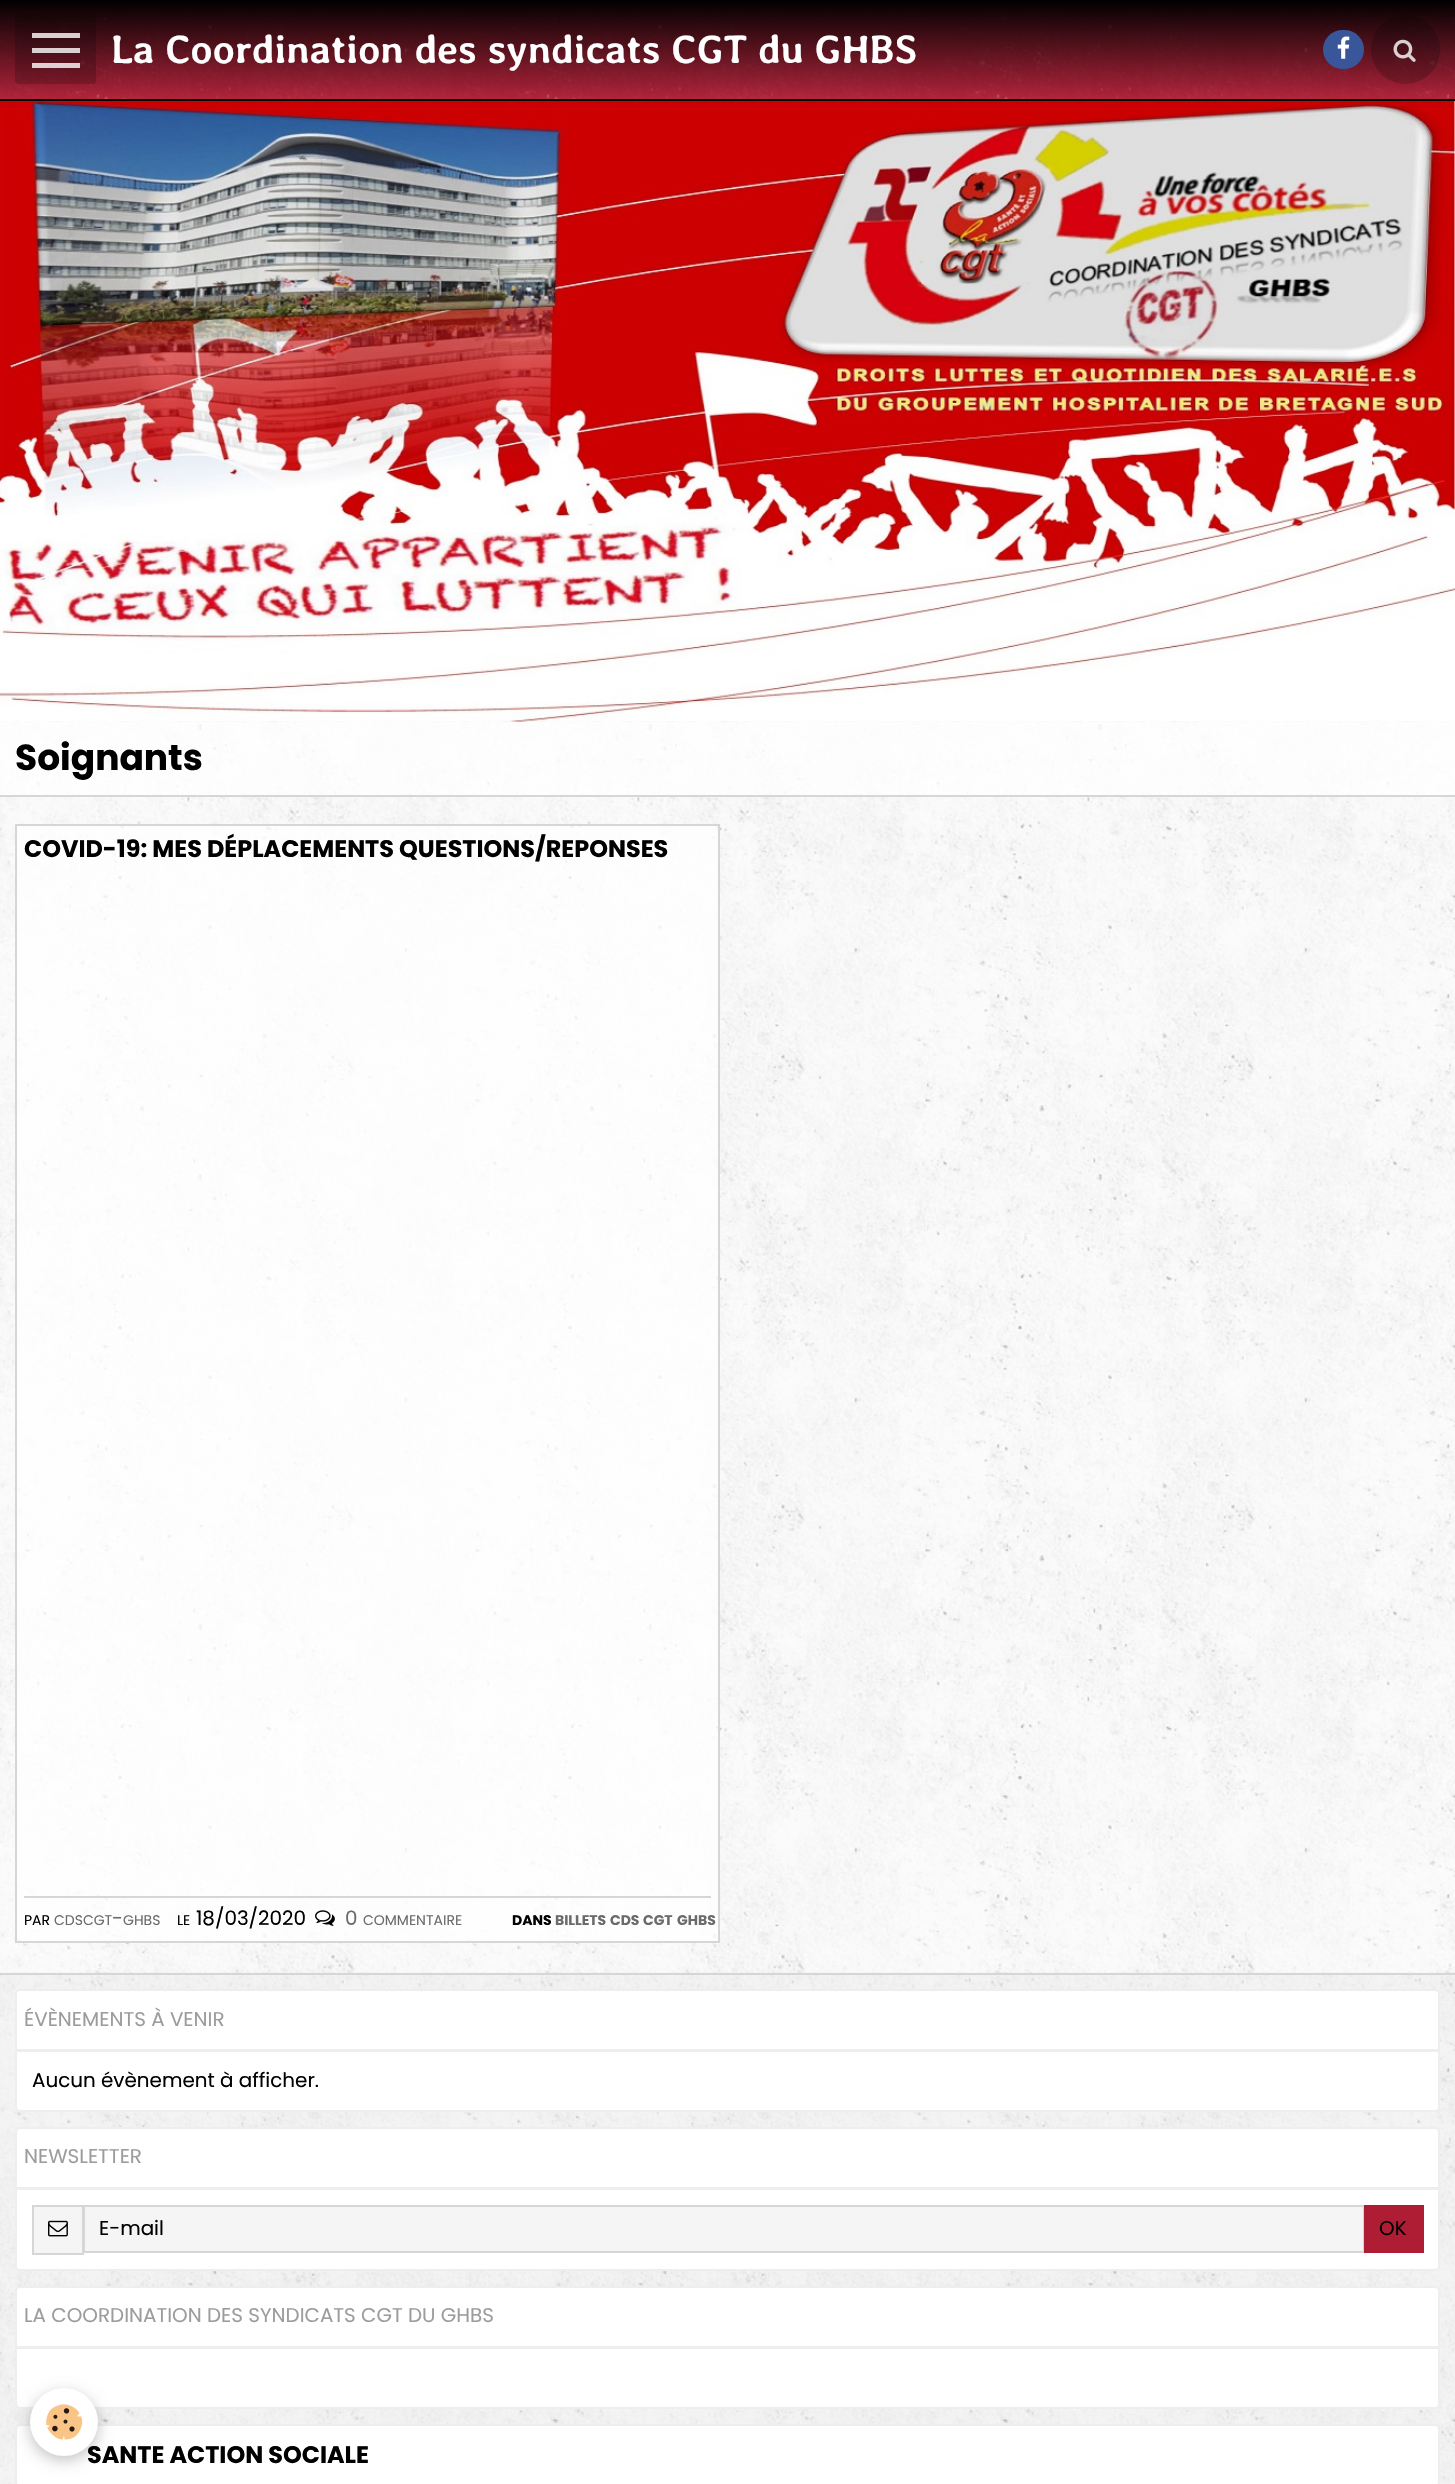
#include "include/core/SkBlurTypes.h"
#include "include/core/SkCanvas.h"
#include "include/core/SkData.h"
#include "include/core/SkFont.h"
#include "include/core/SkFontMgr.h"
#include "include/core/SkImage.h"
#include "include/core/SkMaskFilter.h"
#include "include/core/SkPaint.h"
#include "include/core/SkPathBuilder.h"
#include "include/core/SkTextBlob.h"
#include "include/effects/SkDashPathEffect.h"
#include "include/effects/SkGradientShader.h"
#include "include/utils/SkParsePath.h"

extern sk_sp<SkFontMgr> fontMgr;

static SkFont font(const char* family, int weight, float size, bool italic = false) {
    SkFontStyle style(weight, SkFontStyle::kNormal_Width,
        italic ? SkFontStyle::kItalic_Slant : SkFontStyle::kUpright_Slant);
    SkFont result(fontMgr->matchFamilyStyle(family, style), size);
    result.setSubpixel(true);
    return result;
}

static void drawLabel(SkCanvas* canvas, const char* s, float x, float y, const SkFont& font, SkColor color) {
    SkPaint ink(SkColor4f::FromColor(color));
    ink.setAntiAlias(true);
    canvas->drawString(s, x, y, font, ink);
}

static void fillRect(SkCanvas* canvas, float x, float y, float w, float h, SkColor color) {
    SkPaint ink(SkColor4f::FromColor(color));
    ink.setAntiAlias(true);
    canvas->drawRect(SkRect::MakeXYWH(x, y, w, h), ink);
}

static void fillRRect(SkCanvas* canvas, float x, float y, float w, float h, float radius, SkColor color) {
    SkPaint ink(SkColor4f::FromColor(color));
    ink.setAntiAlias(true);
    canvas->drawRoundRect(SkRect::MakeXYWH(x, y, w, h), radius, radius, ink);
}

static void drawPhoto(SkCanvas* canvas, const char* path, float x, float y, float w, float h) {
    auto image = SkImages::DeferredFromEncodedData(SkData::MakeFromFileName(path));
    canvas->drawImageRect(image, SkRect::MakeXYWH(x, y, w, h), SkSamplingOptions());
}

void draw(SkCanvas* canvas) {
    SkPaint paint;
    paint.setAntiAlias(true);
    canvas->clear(0xFFFFFFFF);
    drawPhoto(canvas, "assets/img1.png", 0, 721, 1455, 1252);
    fillRect(canvas, 0, 1, 1455, 98, 0xFFAF1D35);
    drawPhoto(canvas, "assets/img2.png", 0, 1, 1455, 98);
    fillRect(canvas, 0, 99, 1455, 2, 0xFF000000);
    {
        const SkColor colors[] = {0xFF000000, 0x00000000};
        const float stops[] = {0, 1};
        const SkPoint ends[] = {{728, 0}, {728, 99}};
        paint.setShader(SkGradientShader::MakeLinear(ends, colors, stops, 2, SkTileMode::kClamp));
        paint.setAlpha(255);
    }
    canvas->drawRect(SkRect::MakeXYWH(0, 0, 1455, 97), paint);
    fillRRect(canvas, 15, 15, 81, 69, 3, 0x33000000);
    fillRect(canvas, 32, 48, 48, 5, 0xCCFFFFFF);
    fillRect(canvas, 32, 33, 48, 5, 0xCCFFFFFF);
    fillRect(canvas, 32, 63, 48, 5, 0xCCFFFFFF);
    SkFont font1 = font("Averia Libre", 700, 39.8f);
    drawLabel(canvas, "La Coordination des syndicats CGT du GHBS", 111, 63, font1, 0xFFFFFFFF);
    fillRRect(canvas, 1323, 30, 41, 39, 19.5f, 0xFF385699);
    drawPhoto(canvas, "assets/img3.png", 1337, 36, 13, 23);
    paint.setShader(nullptr);
    paint.setColor(0x33000000);
    canvas->drawCircle(1405.5f, 49.5f, 34.5f, paint);
    drawPhoto(canvas, "assets/img4.png", 1393, 39, 23, 23);
    drawPhoto(canvas, "assets/img5.png", 0, 101, 1455, 621);
    fillRect(canvas, 0, 722, 1455, 73, 0xBDFFFFFF);
    fillRect(canvas, 0, 795, 1455, 2, 0xFFD6D6D6);
    SkFont font2 = font("Poppins", 700, 36);
    drawLabel(canvas, "Soignants", 15, 770, font2, 0xFF000000);
    paint.setColor(0xBDFFFFFF);
    canvas->drawRect(SkRect::MakeXYWH(16, 825, 703, 1117), paint);
    paint.setStroke(true);
    paint.setStrokeWidth(2);
    paint.setColor(0xFFD6D6D6);
    canvas->drawRect(SkRect::MakeXYWH(16, 825, 703, 1117), paint);
    SkFont font3 = font("Poppins", 700, 23.9f);
    drawLabel(canvas, "COVID-19: MES DÉPLACEMENTS QUESTIONS/REPONSES", 24, 857, font3, 0xFF000000);
    fillRect(canvas, 24, 1896, 687, 2, 0xFFD6D6D6);
    SkFont font4 = font("Poppins", 400, 14);
    drawLabel(canvas, "PAR", 24, 1925, font4, 0xFF000000);
    drawLabel(canvas, "CDSCGT", 54, 1925, font4, 0xFF6C6B6B);
    SkFont font5 = font("Poppins", 400, 19.9f);
    drawLabel(canvas, "-", 112, 1925, font5, 0xFF6C6B6B);
    drawLabel(canvas, "GHBS", 123, 1925, font4, 0xFF6C6B6B);
    drawLabel(canvas, "LE", 177, 1925, font4, 0xFF000000);
    drawLabel(canvas, "18/03/2020", 196, 1925, font5, 0xFF000000);
    drawPhoto(canvas, "assets/img6.png", 315, 1910, 20, 16);
    drawLabel(canvas, "0", 345, 1925, font5, 0xFF6C6B6B);
    drawLabel(canvas, "COMMENTAIRE", 363, 1925, font4, 0xFF6C6B6B);
    SkFont font6 = font("Poppins", 700, 14);
    drawLabel(canvas, "DANS", 512, 1925, font6, 0xFF000000);
    drawLabel(canvas, "BILLETS", 555, 1925, font6, 0xFF6C6B6B);
    drawLabel(canvas, "CDS", 610, 1925, font6, 0xFF6C6B6B);
    drawLabel(canvas, "CGT", 643, 1925, font6, 0xFF6C6B6B);
    drawLabel(canvas, "GHBS", 677, 1925, font6, 0xFF6C6B6B);
    fillRect(canvas, 0, 1975, 1455, 509, 0xFFF8F8F8);
    drawPhoto(canvas, "assets/img7.png", 0, 1972, 1455, 512);
    fillRect(canvas, 0, 1973, 1455, 2, 0xFFD6D6D6);
    paint.setStroke(false);
    paint.setColor(0xFFFFFFFF);
    canvas->drawRoundRect(SkRect::MakeXYWH(16, 1990, 1423, 121), 4, 4, paint);
    paint.setStroke(true);
    paint.setColor(0xFFEEEEEE);
    canvas->drawRoundRect(SkRect::MakeXYWH(16, 1990, 1423, 121), 4, 4, paint);
    fillRect(canvas, 17, 2049, 1422, 3, 0xFFEEEEEE);
    drawLabel(canvas, "ÉVÈNEMENTS À VENIR", 24, 2026, font5, 0xFF9C9C9C);
    drawLabel(canvas, "Aucun évènement à afficher.", 32, 2087, font5, 0xFF000000);
    paint.setStroke(false);
    paint.setColor(0xFFFFFFFF);
    canvas->drawRoundRect(SkRect::MakeXYWH(16, 2128, 1423, 142), 4, 4, paint);
    paint.setStroke(true);
    paint.setColor(0xFFEEEEEE);
    canvas->drawRoundRect(SkRect::MakeXYWH(16, 2128, 1423, 142), 4, 4, paint);
    fillRect(canvas, 17, 2187, 1422, 3, 0xFFEEEEEE);
    drawLabel(canvas, "NEWSLETTER", 24, 2163, font5, 0xFF9C9C9C);
    paint.setStroke(false);
    paint.setColor(0xFFF5F5F5);
    canvas->drawRect(SkRect::MakeXYWH(33, 2206, 50, 48), paint);
    paint.setStroke(true);
    paint.setColor(0xFFD6D6D6);
    canvas->drawRect(SkRect::MakeXYWH(33, 2206, 50, 48), paint);
    drawPhoto(canvas, "assets/img8.png", 48, 2220, 20, 17);
    paint.setStroke(false);
    paint.setColor(0xFFF5F5F5);
    canvas->drawRect(SkRect::MakeXYWH(84, 2206, 1280, 46), paint);
    paint.setStroke(true);
    paint.setColor(0xFFD6D6D6);
    canvas->drawRect(SkRect::MakeXYWH(84, 2206, 1280, 46), paint);
    drawLabel(canvas, "E-mail", 99, 2235, font5, 0xFF000000);
    fillRect(canvas, 1364, 2205, 60, 48, 0xFFAF1D35);
    drawLabel(canvas, "OK", 1379, 2235, font5, 0xFF000000);
    paint.setStroke(false);
    paint.setColor(0xFFFFFFFF);
    canvas->drawRoundRect(SkRect::MakeXYWH(16, 2287, 1423, 121), 4, 4, paint);
    paint.setStroke(true);
    paint.setColor(0xFFEEEEEE);
    canvas->drawRoundRect(SkRect::MakeXYWH(16, 2287, 1423, 121), 4, 4, paint);
    fillRect(canvas, 17, 2346, 1422, 3, 0xFFEEEEEE);
    drawLabel(canvas, "LA COORDINATION DES SYNDICATS CGT DU GHBS", 24, 2322, font5, 0xFF9C9C9C);
    paint.setStroke(false);
    paint.setColor(0xFFFFFFFF);
    canvas->drawRoundRect(SkRect::MakeXYWH(16, 2425, 1423, 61), 4, 4, paint);
    paint.setStroke(true);
    paint.setColor(0xFFEEEEEE);
    canvas->drawRoundRect(SkRect::MakeXYWH(16, 2425, 1423, 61), 4, 4, paint);
    drawLabel(canvas, "SANTE ACTION SOCIALE", 87, 2463, font3, 0xFF000000);
    paint.setStroke(false);
    paint.setColor(0x3D000000);
    paint.setMaskFilter(SkMaskFilter::MakeBlur(kNormal_SkBlurStyle, 7.5f));
    canvas->drawRoundRect(SkRect::MakeXYWH(30, 2393, 68, 67), 33.5f, 33.5f, paint);
    paint.setMaskFilter(nullptr);
    paint.setColor(0xFFFFFFFF);
    canvas->drawCircle(64, 2422, 34, paint);
    drawPhoto(canvas, "assets/img9.png", 46, 2404, 37, 36);
}
